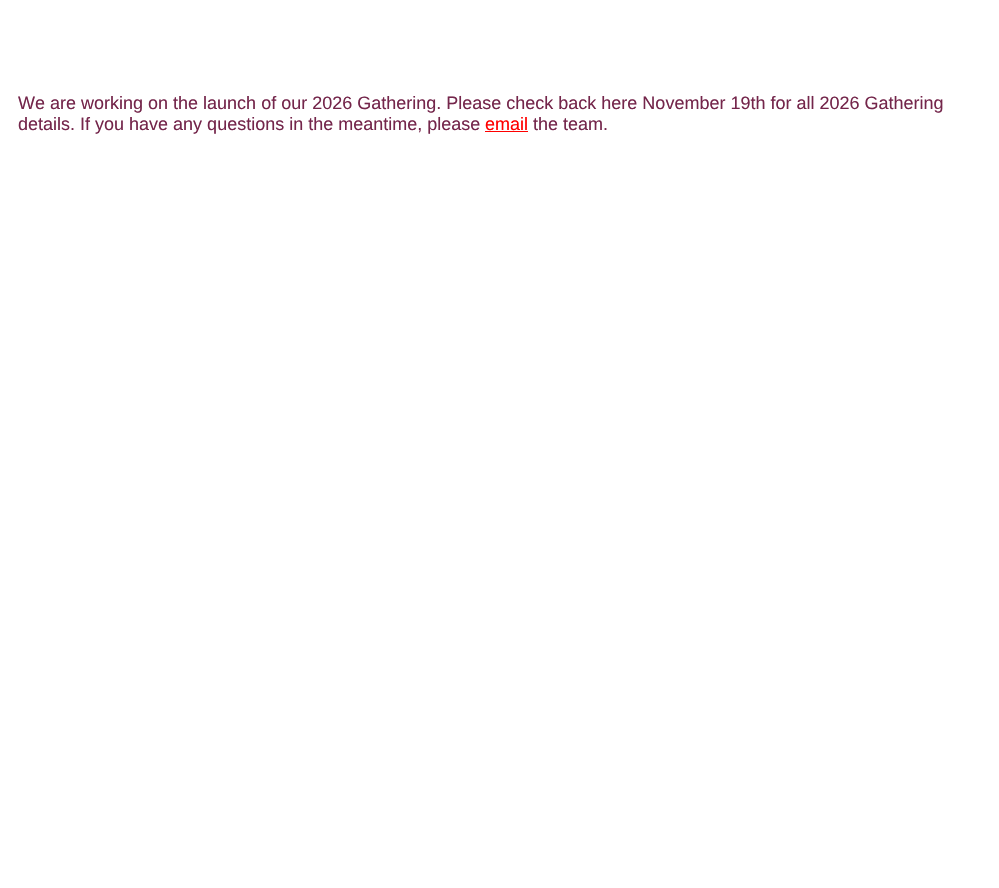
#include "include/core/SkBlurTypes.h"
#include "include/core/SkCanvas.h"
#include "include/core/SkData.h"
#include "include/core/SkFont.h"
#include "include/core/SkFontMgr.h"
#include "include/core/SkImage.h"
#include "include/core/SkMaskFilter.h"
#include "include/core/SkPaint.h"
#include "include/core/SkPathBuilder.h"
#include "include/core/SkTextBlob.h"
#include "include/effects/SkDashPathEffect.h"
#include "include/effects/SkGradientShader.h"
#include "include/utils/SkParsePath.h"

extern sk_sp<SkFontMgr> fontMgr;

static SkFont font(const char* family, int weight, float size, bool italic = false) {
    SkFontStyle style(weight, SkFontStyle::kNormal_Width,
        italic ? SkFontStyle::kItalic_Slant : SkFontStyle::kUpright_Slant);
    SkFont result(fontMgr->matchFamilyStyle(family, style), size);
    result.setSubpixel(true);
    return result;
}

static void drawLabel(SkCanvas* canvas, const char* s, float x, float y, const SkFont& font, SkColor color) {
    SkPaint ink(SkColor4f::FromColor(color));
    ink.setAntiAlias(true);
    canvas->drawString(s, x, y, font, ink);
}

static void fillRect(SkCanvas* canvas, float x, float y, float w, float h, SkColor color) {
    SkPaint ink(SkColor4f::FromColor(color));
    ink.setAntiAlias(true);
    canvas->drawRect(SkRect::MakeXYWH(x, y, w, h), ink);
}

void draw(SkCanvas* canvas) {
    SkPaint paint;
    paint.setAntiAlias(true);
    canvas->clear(0xFFFFFFFF);
    SkFont font1 = font("Liberation Sans", 400, 18);
    drawLabel(canvas, "We are working on the launch of our 2026 Gathering. Please check back here November 19th for all 2026 Gathering", 18, 109, font1, 0xFF74264B);
    drawLabel(canvas, "details. If you have any questions in the meantime, please", 18, 130, font1, 0xFF74264B);
    drawLabel(canvas, "email", 485, 130, font1, 0xFFFF0000);
    fillRect(canvas, 485, 131, 43, 1, 0xFFFF0000);
    drawLabel(canvas, "the team.", 533, 130, font1, 0xFF74264B);
}
